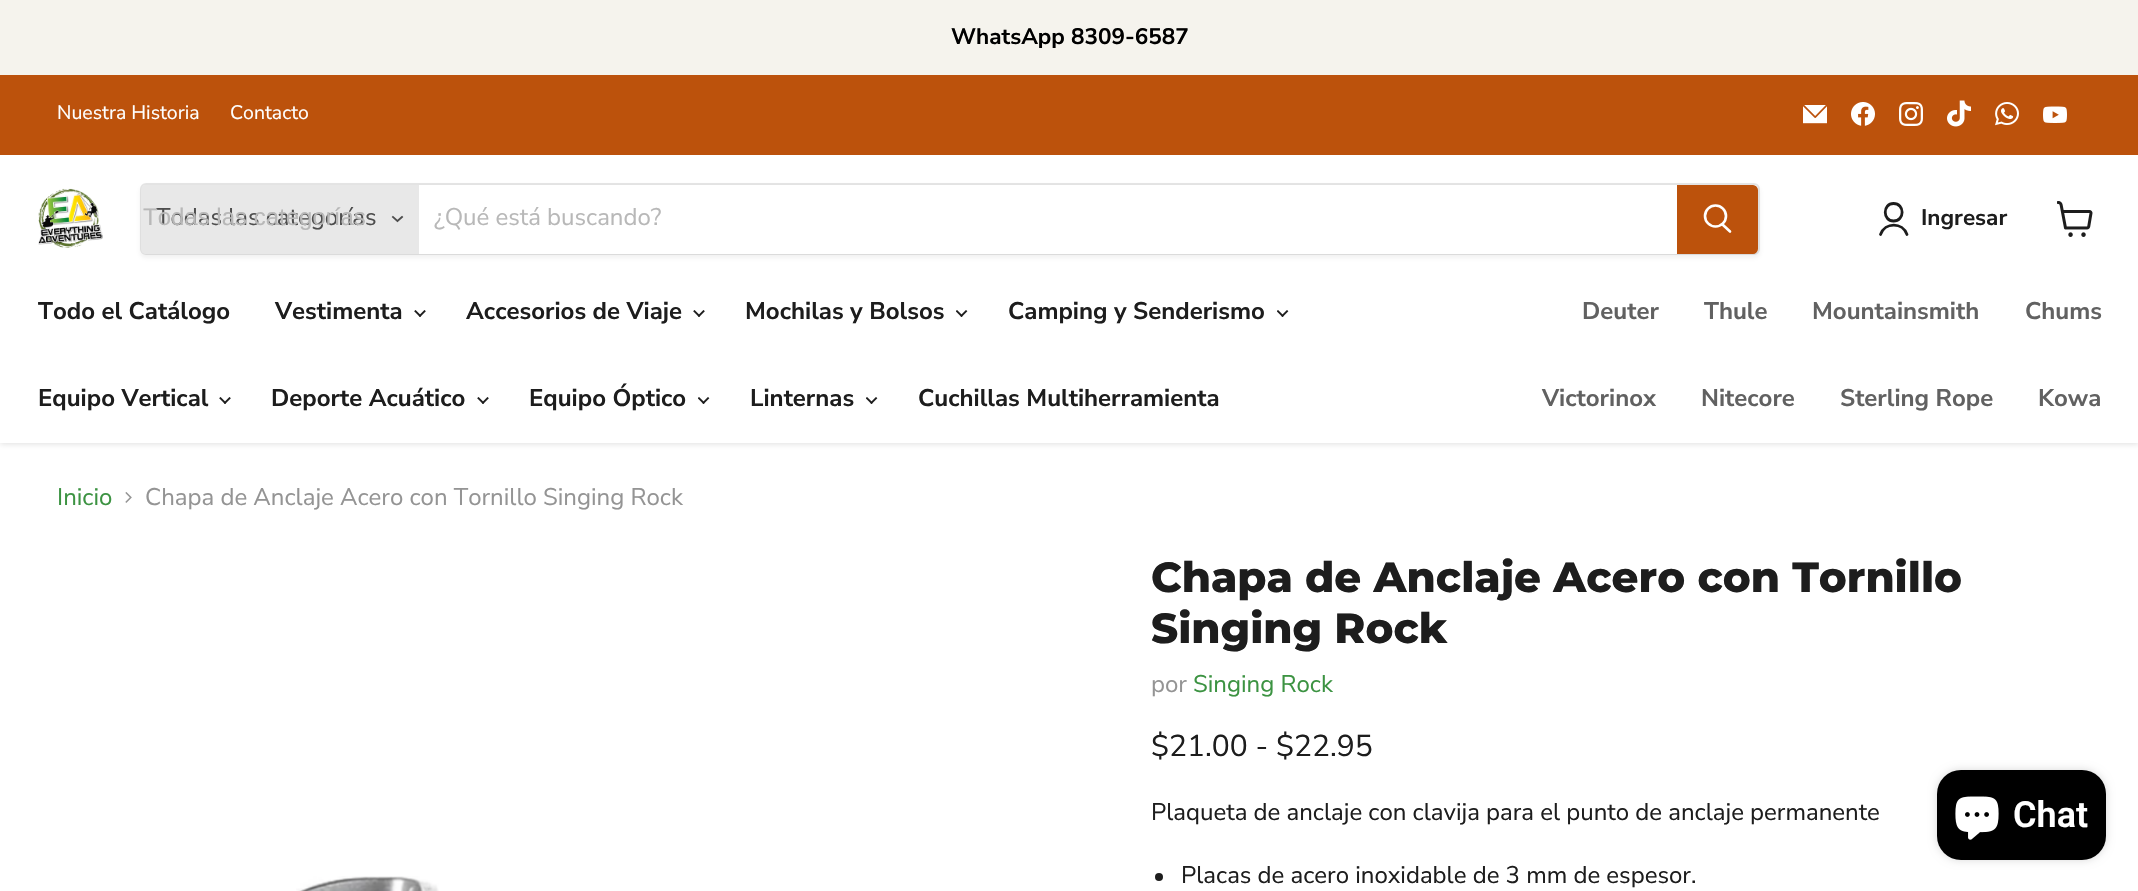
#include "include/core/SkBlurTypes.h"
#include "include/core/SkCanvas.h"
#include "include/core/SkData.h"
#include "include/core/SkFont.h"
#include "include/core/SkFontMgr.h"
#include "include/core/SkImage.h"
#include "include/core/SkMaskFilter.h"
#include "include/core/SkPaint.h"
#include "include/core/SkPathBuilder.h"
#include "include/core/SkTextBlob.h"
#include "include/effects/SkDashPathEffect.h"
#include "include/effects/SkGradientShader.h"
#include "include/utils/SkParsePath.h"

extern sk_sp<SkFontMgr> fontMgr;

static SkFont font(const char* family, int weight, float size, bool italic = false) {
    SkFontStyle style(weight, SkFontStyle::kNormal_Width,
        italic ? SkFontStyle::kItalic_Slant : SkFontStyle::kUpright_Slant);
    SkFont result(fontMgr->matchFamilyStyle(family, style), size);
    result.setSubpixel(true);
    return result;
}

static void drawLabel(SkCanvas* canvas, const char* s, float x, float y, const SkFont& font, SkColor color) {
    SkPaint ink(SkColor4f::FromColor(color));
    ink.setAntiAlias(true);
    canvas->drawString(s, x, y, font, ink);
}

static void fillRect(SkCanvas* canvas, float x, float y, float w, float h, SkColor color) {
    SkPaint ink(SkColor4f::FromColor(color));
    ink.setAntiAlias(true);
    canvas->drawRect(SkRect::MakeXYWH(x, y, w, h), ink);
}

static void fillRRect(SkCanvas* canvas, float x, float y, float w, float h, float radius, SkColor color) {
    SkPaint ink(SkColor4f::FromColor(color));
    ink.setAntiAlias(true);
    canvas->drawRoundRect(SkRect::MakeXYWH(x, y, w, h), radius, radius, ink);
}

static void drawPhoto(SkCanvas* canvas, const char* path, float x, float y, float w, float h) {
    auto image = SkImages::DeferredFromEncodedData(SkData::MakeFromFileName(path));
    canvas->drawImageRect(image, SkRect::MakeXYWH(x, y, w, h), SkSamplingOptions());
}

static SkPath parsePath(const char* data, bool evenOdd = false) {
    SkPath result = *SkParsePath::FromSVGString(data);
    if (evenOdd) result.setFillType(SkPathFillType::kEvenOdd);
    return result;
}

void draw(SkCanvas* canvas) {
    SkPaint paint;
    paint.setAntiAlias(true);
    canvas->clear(0xFFFFFFFF);
    fillRect(canvas, 0, 0, 2138, 75, 0xFFF5F3ED);
    SkFont font1 = font("Nunito Sans", 700, 22.5f);
    drawLabel(canvas, "WhatsApp 8309-6587", 951, 44, font1, 0xFF000000);
    paint.setColor(0x40808080);
    paint.setMaskFilter(SkMaskFilter::MakeBlur(kNormal_SkBlurStyle, 3));
    canvas->drawRect(SkRect::MakeXYWH(0, 156, 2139, 288), paint);
    paint.setMaskFilter(nullptr);
    fillRect(canvas, 0, 75, 2138, 80, 0xFFBC520C);
    SkFont font2 = font("Nunito Sans", 400, 19.5f);
    drawLabel(canvas, "Nuestra Historia", 57, 119, font2, 0xFFFFFFFF);
    drawLabel(canvas, "Contacto", 230, 119, font2, 0xFFFFFFFF);
    drawPhoto(canvas, "assets/img1.png", 1803, 105, 24, 19);
    drawPhoto(canvas, "assets/img2.png", 1851, 102, 24, 24);
    drawPhoto(canvas, "assets/img3.png", 1899, 102, 24, 24);
    drawPhoto(canvas, "assets/img4.png", 1947, 100, 24, 27);
    drawPhoto(canvas, "assets/img5.png", 1995, 102, 24, 24);
    drawPhoto(canvas, "assets/img6.png", 2043, 106, 24, 17);
    fillRect(canvas, 0, 155, 2138, 288, 0xFFFFFFFF);
    drawPhoto(canvas, "assets/img7.png", 38, 188, 65, 60);
    paint.setColor(0x1C808080);
    paint.setMaskFilter(SkMaskFilter::MakeBlur(kNormal_SkBlurStyle, 2));
    canvas->drawRoundRect(SkRect::MakeXYWH(140, 186, 1620, 72), 6, 6, paint);
    paint.setMaskFilter(nullptr);
    paint.setStroke(true);
    paint.setStrokeWidth(2);
    paint.setColor(0x33808080);
    canvas->drawRoundRect(SkRect::MakeXYWH(141, 184, 1618, 70), 5, 5, paint);
    paint.setStroke(false);
    paint.setColor(0xFFE8E8E8);
    canvas->drawPath(parsePath("M146 185H419V254H146C143 254 141 252 141 249V190C141 187 143 185 146 185Z"), paint);
    SkFont font3 = font("Nunito Sans", 400, 24);
    drawLabel(canvas, "Todas las categorías", 156, 225, font3, 0xFF4D4D4D);
    SkFont font4 = font("Liberation Sans", 400, 24);
    drawLabel(canvas, "Todas las categorías", 143, 225, font4, 0xFFB8B8B8);
    paint.setStroke(true);
    paint.setStrokeWidth(1.9f);
    paint.setStrokeCap(SkPaint::kSquare_Cap);
    paint.setColor(0xFF4D4D4D);
    canvas->drawPath(parsePath("M397.5 221L402 217M397.5 221L393 217"), paint);
    fillRect(canvas, 419, 185, 1258, 69, 0xFFFFFFFF);
    drawLabel(canvas, "¿Qué está buscando?", 434, 225, font3, 0xFFB8B8B8);
    paint.setStroke(false);
    paint.setColor(0xFFBC520C);
    canvas->drawPath(parsePath("M1678 186H1753C1755 186 1757 188 1757 190V249C1757 251 1755 253 1753 253H1678Z"), paint);
    paint.setStroke(true);
    paint.setStrokeWidth(2);
    paint.setStrokeCap(SkPaint::kButt_Cap);
    canvas->drawPath(parsePath("M1678 186H1753C1755 186 1757 188 1757 190V249C1757 251 1755 253 1753 253H1678Z"), paint);
    paint.setStrokeWidth(2.6f);
    paint.setStrokeCap(SkPaint::kRound_Cap);
    paint.setColor(0xFFFFFFFF);
    canvas->drawPath(parsePath("M1730 231.5L1722.5 224.5"), paint);
    paint.setStrokeCap(SkPaint::kButt_Cap);
    canvas->drawCircle(1715.5f, 216, 10.5f, paint);
    paint.setStrokeWidth(2.8f);
    paint.setStrokeCap(SkPaint::kRound_Cap);
    paint.setStrokeJoin(SkPaint::kRound_Join);
    paint.setColor(0xFF1D1D1D);
    canvas->drawPath(parsePath("M1893.5 221C1905 221 1905 203.5 1893.5 203.5C1882.5 203.5 1882.5 221 1893.5 221ZM1907 234.5C1902.5 222 1885 222 1880.5 234.5"), paint);
    drawLabel(canvas, "Ingresar", 1921, 225, font1, 0xFF1D1D1D);
    drawPhoto(canvas, "assets/img8.png", 2057, 201, 36, 36);
    SkFont font5 = font("Nunito Sans", 700, 24);
    drawLabel(canvas, "Todo el Catálogo", 38, 319, font5, 0xFF1D1D1D);
    drawLabel(canvas, "Vestimenta", 275, 319, font5, 0xFF1D1D1D);
    drawPhoto(canvas, "assets/img9.png", 414, 310, 12, 7);
    drawLabel(canvas, "Accesorios de Viaje", 466, 319, font5, 0xFF1D1D1D);
    drawPhoto(canvas, "assets/img9.png", 693, 310, 12, 7);
    drawLabel(canvas, "Mochilas y Bolsos", 745, 319, font5, 0xFF1D1D1D);
    drawPhoto(canvas, "assets/img10.png", 956, 310, 12, 7);
    drawLabel(canvas, "Camping y Senderismo", 1008, 319, font5, 0xFF1D1D1D);
    drawPhoto(canvas, "assets/img10.png", 1277, 310, 12, 7);
    drawLabel(canvas, "Equipo Vertical", 38, 406, font5, 0xFF1D1D1D);
    drawPhoto(canvas, "assets/img9.png", 219, 397, 12, 7);
    drawLabel(canvas, "Deporte Acuático", 271, 406, font5, 0xFF1D1D1D);
    drawPhoto(canvas, "assets/img9.png", 477, 397, 12, 7);
    drawLabel(canvas, "Equipo Óptico", 529, 406, font5, 0xFF1D1D1D);
    drawPhoto(canvas, "assets/img10.png", 698, 397, 12, 7);
    drawLabel(canvas, "Linternas", 750, 406, font5, 0xFF1D1D1D);
    drawPhoto(canvas, "assets/img10.png", 866, 397, 12, 7);
    drawLabel(canvas, "Cuchillas Multiherramienta", 918, 406, font5, 0xFF1D1D1D);
    drawLabel(canvas, "Deuter", 1582, 319, font5, 0xFF616161);
    drawLabel(canvas, "Thule", 1704, 319, font5, 0xFF616161);
    drawLabel(canvas, "Mountainsmith", 1812, 319, font5, 0xFF616161);
    drawLabel(canvas, "Chums", 2025, 319, font5, 0xFF616161);
    drawLabel(canvas, "Victorinox", 1542, 406, font5, 0xFF616161);
    drawLabel(canvas, "Nitecore", 1701, 406, font5, 0xFF616161);
    drawLabel(canvas, "Sterling Rope", 1840, 406, font5, 0xFF616161);
    drawLabel(canvas, "Kowa", 2038, 406, font5, 0xFF616161);
    drawLabel(canvas, "Inicio", 57, 505, font3, 0xFF3C9342);
    drawPhoto(canvas, "assets/img11.png", 125, 492, 7, 11);
    drawLabel(canvas, "Chapa de Anclaje Acero con Tornillo Singing Rock", 145, 505, font3, 0xFF949494);
    drawPhoto(canvas, "assets/img12.png", 296, 876, 143, 15);
    SkFont font6 = font("Montserrat", 800, 42);
    drawLabel(canvas, "Chapa de Anclaje Acero con Tornillo", 1151, 592, font6, 0xFF1D1D1D);
    drawLabel(canvas, "Singing Rock", 1151, 643, font6, 0xFF1D1D1D);
    drawLabel(canvas, "por", 1151, 692, font3, 0xFF949494);
    drawLabel(canvas, "Singing Rock", 1193, 692, font3, 0xFF3C9342);
    SkFont font7 = font("Nunito Sans", 400, 30);
    drawLabel(canvas, "$21.00 - $22.95", 1151, 756, font7, 0xFF1D1D1D);
    drawLabel(canvas, "Plaqueta de anclaje con clavija para el punto de anclaje permanente", 1151, 820, font3, 0xFF1D1D1D);
    paint.setStroke(false);
    canvas->drawCircle(1159, 877, 4, paint);
    drawLabel(canvas, "Placas de acero inoxidable de 3 mm de espesor.", 1181, 883, font3, 0xFF1D1D1D);
    paint.setColor(0x26000000);
    paint.setMaskFilter(SkMaskFilter::MakeBlur(kNormal_SkBlurStyle, 4));
    canvas->drawRoundRect(SkRect::MakeXYWH(1937, 770, 169, 90), 24, 24, paint);
    paint.setMaskFilter(nullptr);
    fillRRect(canvas, 1937, 770, 169, 90, 24, 0xFF000000);
    drawPhoto(canvas, "assets/img13.png", 1955, 796, 44, 44);
    SkFont font8 = font("Roboto", 600, 36);
    drawLabel(canvas, "Chat", 2013, 827, font8, 0xFFFFFFFF);
}
